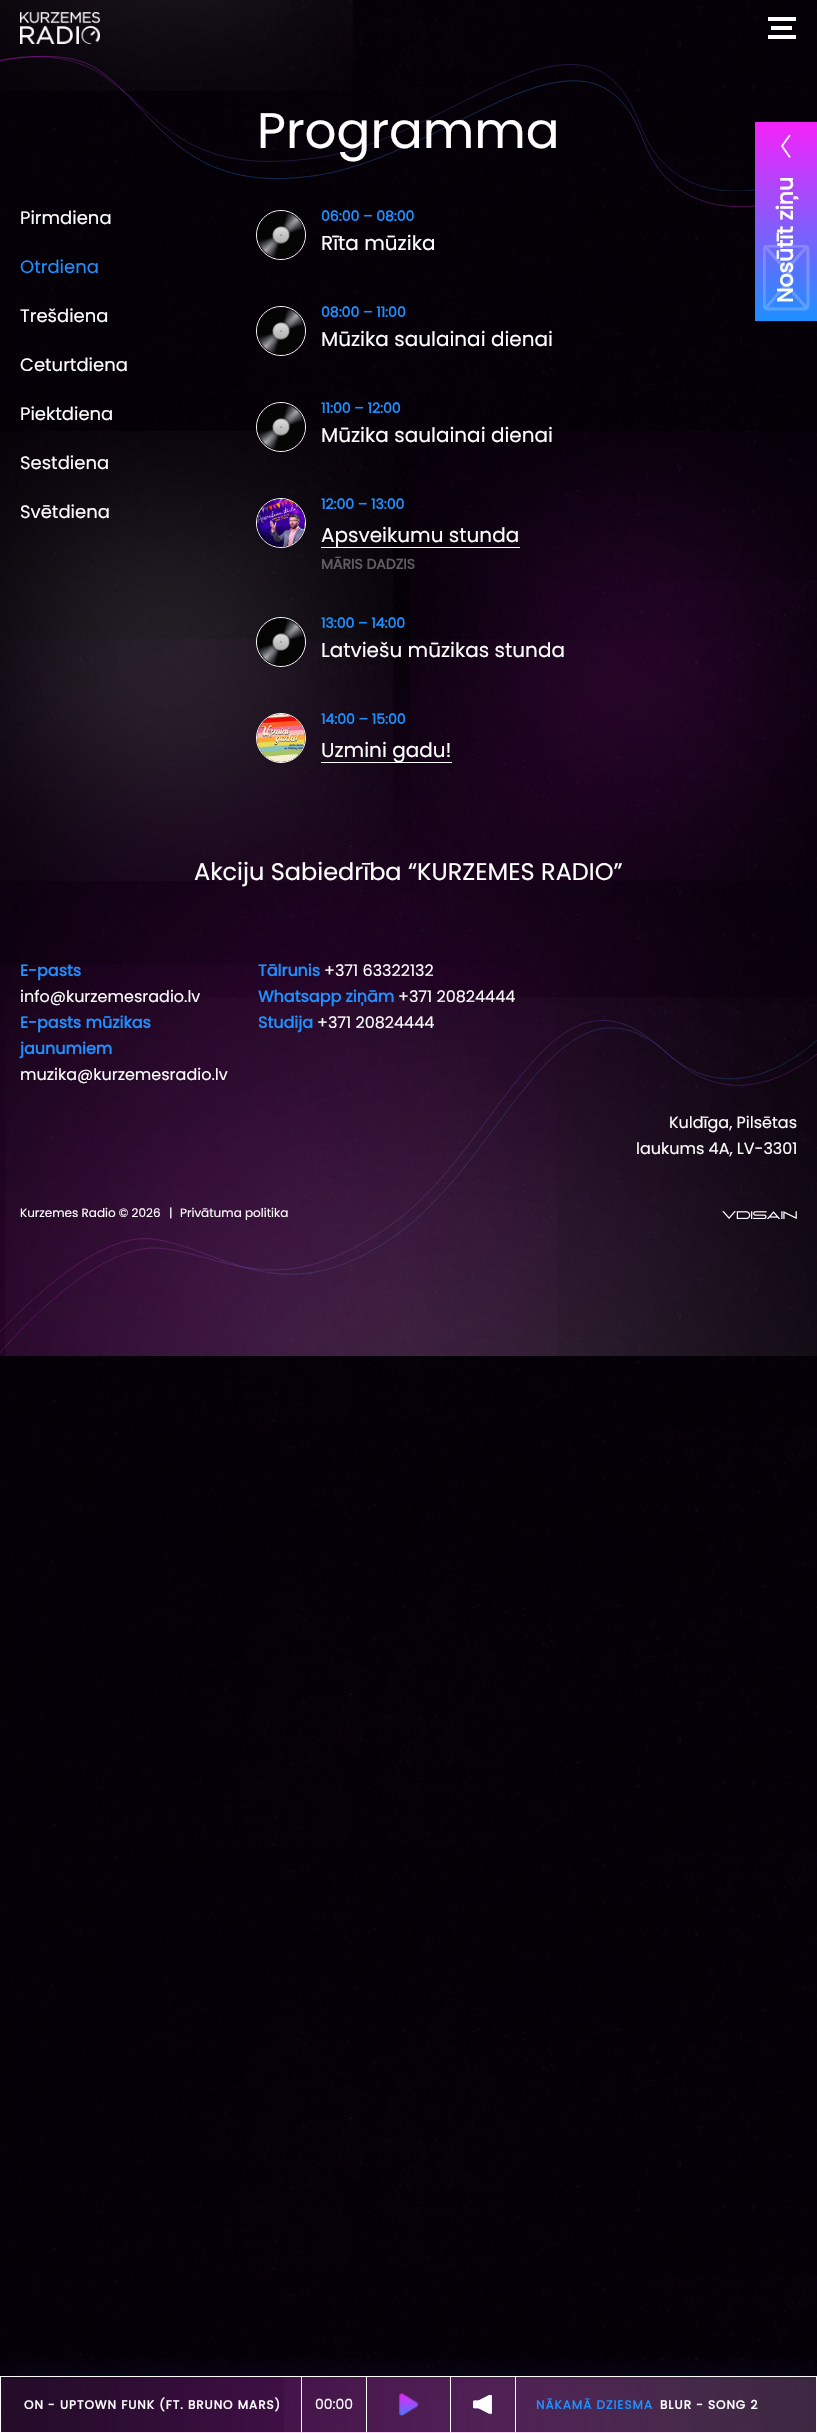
#include "include/core/SkBlurTypes.h"
#include "include/core/SkCanvas.h"
#include "include/core/SkData.h"
#include "include/core/SkFont.h"
#include "include/core/SkFontMgr.h"
#include "include/core/SkImage.h"
#include "include/core/SkMaskFilter.h"
#include "include/core/SkPaint.h"
#include "include/core/SkPathBuilder.h"
#include "include/core/SkTextBlob.h"
#include "include/effects/SkDashPathEffect.h"
#include "include/effects/SkGradientShader.h"
#include "include/utils/SkParsePath.h"

extern sk_sp<SkFontMgr> fontMgr;

static SkFont font(const char* family, int weight, float size, bool italic = false) {
    SkFontStyle style(weight, SkFontStyle::kNormal_Width,
        italic ? SkFontStyle::kItalic_Slant : SkFontStyle::kUpright_Slant);
    SkFont result(fontMgr->matchFamilyStyle(family, style), size);
    result.setSubpixel(true);
    return result;
}

static void drawLabel(SkCanvas* canvas, const char* s, float x, float y, const SkFont& font, SkColor color) {
    SkPaint ink(SkColor4f::FromColor(color));
    ink.setAntiAlias(true);
    canvas->drawString(s, x, y, font, ink);
}

static void drawTracked(SkCanvas* canvas, const char* s, float x, float y, const SkFont& font, const SkPaint& ink, float letter, float word) {
    std::vector<SkGlyphID> glyphs(font.countText(s, strlen(s), SkTextEncoding::kUTF8));
    std::vector<float> xs(glyphs.size());
    font.textToGlyphs(s, strlen(s), SkTextEncoding::kUTF8, glyphs);
    font.getXPos(glyphs, xs, x);
    float extra = 0;
    for (size_t i = 0; i < glyphs.size(); i++) {
        xs[i] += extra;
        extra += letter + word * (glyphs[i] == font.unicharToGlyph(' '));
    }
    canvas->drawTextBlob(SkTextBlob::MakeFromPosHGlyphs(glyphs, xs, y, font), 0, 0, ink);
}

static void fillRect(SkCanvas* canvas, float x, float y, float w, float h, SkColor color) {
    SkPaint ink(SkColor4f::FromColor(color));
    ink.setAntiAlias(true);
    canvas->drawRect(SkRect::MakeXYWH(x, y, w, h), ink);
}

static void drawPhoto(SkCanvas* canvas, const char* path, float x, float y, float w, float h) {
    auto image = SkImages::DeferredFromEncodedData(SkData::MakeFromFileName(path));
    canvas->drawImageRect(image, SkRect::MakeXYWH(x, y, w, h), SkSamplingOptions());
}

static SkPath parsePath(const char* data, bool evenOdd = false) {
    SkPath result = *SkParsePath::FromSVGString(data);
    if (evenOdd) result.setFillType(SkPathFillType::kEvenOdd);
    return result;
}

void draw(SkCanvas* canvas) {
    SkPaint paint;
    paint.setAntiAlias(true);
    canvas->clear(0xFF000000);
    drawPhoto(canvas, "assets/img1.png", 0, 0, 817, 2432);
    canvas->save();
    canvas->clipRect(SkRect::MakeXYWH(0, 56, 817, 135));
    paint.setStroke(true);
    paint.setStrokeWidth(0.6f);
    {
        const SkColor colors[] = {0x59F522FA, 0x591E90FF};
        const float stops[] = {0, 1};
        const SkPoint ends[] = {{384, -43}, {467, 269}};
        paint.setShader(SkGradientShader::MakeLinear(ends, colors, stops, 2, SkTileMode::kClamp));
        paint.setAlpha(255);
    }
    canvas->drawPath(parsePath("M-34 70C-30.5 69 46.5 36.5 104.5 76.5C162.5 117 185 177.5 319 157.5C453 137.5 587-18.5 639.5 123.5C682 237 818 182.5 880.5 140.5"), paint);
    canvas->restore();
    {
        const SkColor colors[] = {0x7DF522FA, 0x7D1E90FF, 0x7DF522FA};
        const float stops[] = {0, 0.49f, 1};
        const SkPoint ends[] = {{383, -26}, {467, 287}};
        paint.setShader(SkGradientShader::MakeLinear(ends, colors, stops, 3, SkTileMode::kClamp));
        paint.setAlpha(255);
    }
    canvas->drawPath(parsePath("M-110 94.5C-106.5 93.5 39 29.5 98 69.5C157 109.5 179.5 196 316 175.5C452.5 155 590-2.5 643 139.5C685.5 253 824.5 197.5 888.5 155.5"), paint);
    drawPhoto(canvas, "assets/img2.png", 0, 0, 353, 91);
    SkFont font1 = font("Poppins", 400, 50);
    drawLabel(canvas, "Programma", 257, 148, font1, 0xFFFFFFFF);
    SkFont font2 = font("Poppins", 400, 18);
    drawLabel(canvas, "Pirmdiena", 20, 224, font2, 0xFFFFFFFF);
    drawLabel(canvas, "Otrdiena", 20, 273, font2, 0xFF1E90FF);
    drawLabel(canvas, "Trešdiena", 20, 322, font2, 0xFFFFFFFF);
    drawLabel(canvas, "Ceturtdiena", 20, 371, font2, 0xFFFFFFFF);
    drawLabel(canvas, "Piektdiena", 20, 420, font2, 0xFFFFFFFF);
    drawPhoto(canvas, "assets/img9.png", 0, 431, 393, 450);
    drawLabel(canvas, "Sestdiena", 20, 469, font2, 0xFFFFFFFF);
    drawLabel(canvas, "Svētdiena", 20, 518, font2, 0xFFFFFFFF);
    paint.setStrokeWidth(1);
    paint.setShader(nullptr);
    paint.setColor(0xFFFFFFFF);
    canvas->drawCircle(281, 235, 24.5f, paint);
    drawPhoto(canvas, "assets/img3.png", 257, 211, 48, 48);
    SkFont font3 = font("Poppins", 700, 14);
    drawLabel(canvas, "06:00 – 08:00", 321, 221, font3, 0xFF1E90FF);
    SkFont font4 = font("Poppins", 400, 20);
    drawLabel(canvas, "Rīta mūzika", 321, 250, font4, 0xFFFFFFFF);
    canvas->drawCircle(281, 331, 24.5f, paint);
    drawPhoto(canvas, "assets/img4.png", 257, 307, 48, 48);
    drawLabel(canvas, "08:00 – 11:00", 321, 317, font3, 0xFF1E90FF);
    drawLabel(canvas, "Mūzika saulainai dienai", 321, 346, font4, 0xFFFFFFFF);
    canvas->drawCircle(281, 427, 24.5f, paint);
    drawPhoto(canvas, "assets/img5.png", 257, 403, 48, 48);
    drawLabel(canvas, "11:00 – 12:00", 321, 413, font3, 0xFF1E90FF);
    drawPhoto(canvas, "assets/img10.png", 410, 431, 407, 450);
    drawLabel(canvas, "Mūzika saulainai dienai", 321, 442, font4, 0xFFFFFFFF);
    canvas->drawCircle(281, 523, 24.5f, paint);
    drawPhoto(canvas, "assets/img6.png", 257, 499, 48, 48);
    drawLabel(canvas, "12:00 – 13:00", 321, 509, font3, 0xFF1E90FF);
    fillRect(canvas, 321, 547, 199, 1, 0xFFFFFFFF);
    drawLabel(canvas, "Apsveikumu stunda", 321, 542, font4, 0xFFFFFFFF);
    drawLabel(canvas, "MĀRIS DADZIS", 321, 569, font3, 0xFF605E62);
    paint.setStrokeWidth(0.6f);
    {
        const SkColor colors[] = {0x59F522FA, 0x591E90FF};
        const float stops[] = {0, 1};
        const SkPoint ends[] = {{359, 1016}, {574, 1257}};
        paint.setShader(SkGradientShader::MakeLinear(ends, colors, stops, 2, SkTileMode::kClamp));
        paint.setAlpha(255);
    }
    canvas->drawPath(parsePath("M-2.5 1355.5C.5 1353 93.5 1239 163.5 1248.5C233.5 1258.5 281 1302.5 391.5 1224.5C502 1146 551 946 662.5 1049.5C751 1132 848 1021.5 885.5 956"), paint);
    {
        const SkColor colors[] = {0x59F522FA, 0x591E90FF, 0x59F522FA};
        const float stops[] = {0, 0.49f, 1};
        const SkPoint ends[] = {{365, 1026}, {580, 1267}};
        paint.setShader(SkGradientShader::MakeLinear(ends, colors, stops, 3, SkTileMode::kClamp));
        paint.setAlpha(255);
    }
    canvas->drawPath(parsePath("M-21.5 1355.5C-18.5 1353 82.5 1230 153 1239C223.5 1248.5 283 1315.5 395.5 1235.5C508 1156 559.5 953.5 671 1056.5C760 1138.5 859 1026.5 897.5 960.5"), paint);
    drawPhoto(canvas, "assets/img12.png", 0, 639, 817, 717);
    paint.setStrokeWidth(1);
    paint.setShader(nullptr);
    paint.setColor(0xFFFFFFFF);
    canvas->drawCircle(281, 642, 24.5f, paint);
    drawPhoto(canvas, "assets/img7.png", 257, 618, 48, 48);
    drawLabel(canvas, "13:00 – 14:00", 321, 628, font3, 0xFF1E90FF);
    drawLabel(canvas, "Latviešu mūzikas stunda", 321, 657, font4, 0xFFFFFFFF);
    canvas->drawCircle(281, 738, 24.5f, paint);
    drawPhoto(canvas, "assets/img8.png", 257, 714, 48, 48);
    drawLabel(canvas, "14:00 – 15:00", 321, 724, font3, 0xFF1E90FF);
    fillRect(canvas, 321, 762, 131, 1, 0xFFFFFFFF);
    drawLabel(canvas, "Uzmini gadu!", 321, 757, font4, 0xFFFFFFFF);
    paint.setStroke(false);
    {
        const SkColor colors[] = {0xFF1E90FF, 0xFFF522FA};
        const float stops[] = {0, 1};
        const SkPoint ends[] = {{786, 321}, {786, 122}};
        paint.setShader(SkGradientShader::MakeLinear(ends, colors, stops, 2, SkTileMode::kClamp));
        paint.setAlpha(255);
    }
    canvas->drawRect(SkRect::MakeXYWH(755, 122, 62, 199), paint);
    paint.setStroke(true);
    paint.setStrokeWidth(1.8f);
    paint.setShader(nullptr);
    paint.setColor(0xFFFFFFFF);
    canvas->drawPath(parsePath("M790 157.5L782 146L790 135"), paint);
    drawPhoto(canvas, "assets/img11.png", 763, 245, 47, 66);
    SkFont font5 = font("Poppins", 700, 22);
    canvas->save();
    canvas->rotate(-90, 793, 303);
    drawLabel(canvas, "Nosūtīt ziņu", 793, 303, font5, 0xFFFFFFFF);
    canvas->restore();
    SkFont font6 = font("Poppins", 400, 24);
    drawLabel(canvas, "Akciju Sabiedrība “KURZEMES RADIO”", 194, 880, font6, 0xFFFFFFFF);
    drawPhoto(canvas, "assets/img14.png", 0, 964, 557, 392);
    SkFont font7 = font("Poppins", 700, 16);
    drawLabel(canvas, "E-pasts", 20, 976, font7, 0xFF1E90FF);
    drawPhoto(canvas, "assets/img15.png", 5, 997, 812, 359);
    SkFont font8 = font("Poppins", 400, 16);
    drawLabel(canvas, "info@kurzemesradio.lv", 20, 1002, font8, 0xFFFFFFFF);
    drawLabel(canvas, "E-pasts mūzikas", 20, 1028, font7, 0xFF1E90FF);
    drawLabel(canvas, "jaunumiem", 20, 1054, font7, 0xFF1E90FF);
    drawLabel(canvas, "muzika@kurzemesradio.lv", 20, 1080, font8, 0xFFFFFFFF);
    drawLabel(canvas, "Tālrunis", 258, 976, font7, 0xFF1E90FF);
    drawLabel(canvas, "+371 63322132", 324, 976, font8, 0xFFFFFFFF);
    drawLabel(canvas, "Whatsapp ziņām", 258, 1002, font7, 0xFF1E90FF);
    drawLabel(canvas, "+371 20824444", 398, 1002, font8, 0xFFFFFFFF);
    drawLabel(canvas, "Studija", 258, 1028, font7, 0xFF1E90FF);
    drawLabel(canvas, "+371 20824444", 317, 1028, font8, 0xFFFFFFFF);
    drawLabel(canvas, "Kuldīga, Pilsētas", 669, 1128, font8, 0xFFFFFFFF);
    drawLabel(canvas, "laukums 4A, LV-3301", 636, 1154, font8, 0xFFFFFFFF);
    SkFont font9 = font("Poppins", 400, 12);
    drawLabel(canvas, "Kurzemes Radio © 2026", 20, 1217, font9, 0xFFFFFFFF);
    drawLabel(canvas, "|", 169, 1217, font9, 0xFFFFFFFF);
    drawLabel(canvas, "Privātuma politika", 180, 1217, font9, 0xFFFFFFFF);
    drawPhoto(canvas, "assets/img13.png", 722, 1211, 75, 8);
    drawPhoto(canvas, "assets/img16.png", 20, 12, 80, 32);
    fillRect(canvas, 768, 17, 28, 4, 0xFFFFFFFF);
    fillRect(canvas, 771, 26, 21, 4, 0xFFFFFFFF);
    fillRect(canvas, 768, 35, 28, 4, 0xFFFFFFFF);
    canvas->save();
    canvas->clipRect(SkRect::MakeXYWH(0, 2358, 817, 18));
    paint.setStroke(false);
    paint.setColor(0x5E1F2687);
    paint.setMaskFilter(SkMaskFilter::MakeBlur(kNormal_SkBlurStyle, 16));
    canvas->drawRect(SkRect::MakeXYWH(0, 2384, 817, 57), paint);
    paint.setMaskFilter(nullptr);
    canvas->restore();
    paint.setColor(0xB328102F);
    canvas->drawRect(SkRect::MakeXYWH(0.5f, 2376.5f, 816, 56), paint);
    paint.setStroke(true);
    paint.setStrokeWidth(1);
    paint.setColor(0xFFFFFFFF);
    canvas->drawRect(SkRect::MakeXYWH(0.5f, 2376.5f, 816, 56), paint);
    drawPhoto(canvas, "assets/img17.png", 0, 2377, 817, 56);
    drawPhoto(canvas, "assets/img18.png", 284, 2377, 532, 55);
    SkFont font10 = font("Poppins", 700, 12);
    paint.setStroke(false);
    drawTracked(canvas, "ON - UPTOWN FUNK (FT. BRUNO MARS)", 24, 2409, font10, paint, 1, 0);
    fillRect(canvas, 301, 2377, 1, 55, 0xFFFFFFFF);
    SkFont font11 = font("Poppins", 400, 14);
    drawLabel(canvas, "00:00", 315, 2409, font11, 0xFFFFFFFF);
    fillRect(canvas, 450, 2377, 1, 55, 0xFFFFFFFF);
    fillRect(canvas, 366, 2377, 1, 55, 0xFFFFFFFF);
    drawPhoto(canvas, "assets/img19.png", 399, 2393, 20, 23);
    fillRect(canvas, 515, 2377, 1, 55, 0xFFFFFFFF);
    drawPhoto(canvas, "assets/img20.png", 473, 2395, 19, 19);
    paint.setColor(0xFF1E90FF);
    drawTracked(canvas, "NĀKAMĀ DZIESMA", 536, 2409, font10, paint, 1, 0);
    paint.setColor(0xFFFFFFFF);
    drawTracked(canvas, "BLUR - SONG 2", 660, 2409, font10, paint, 1, 0);
}
